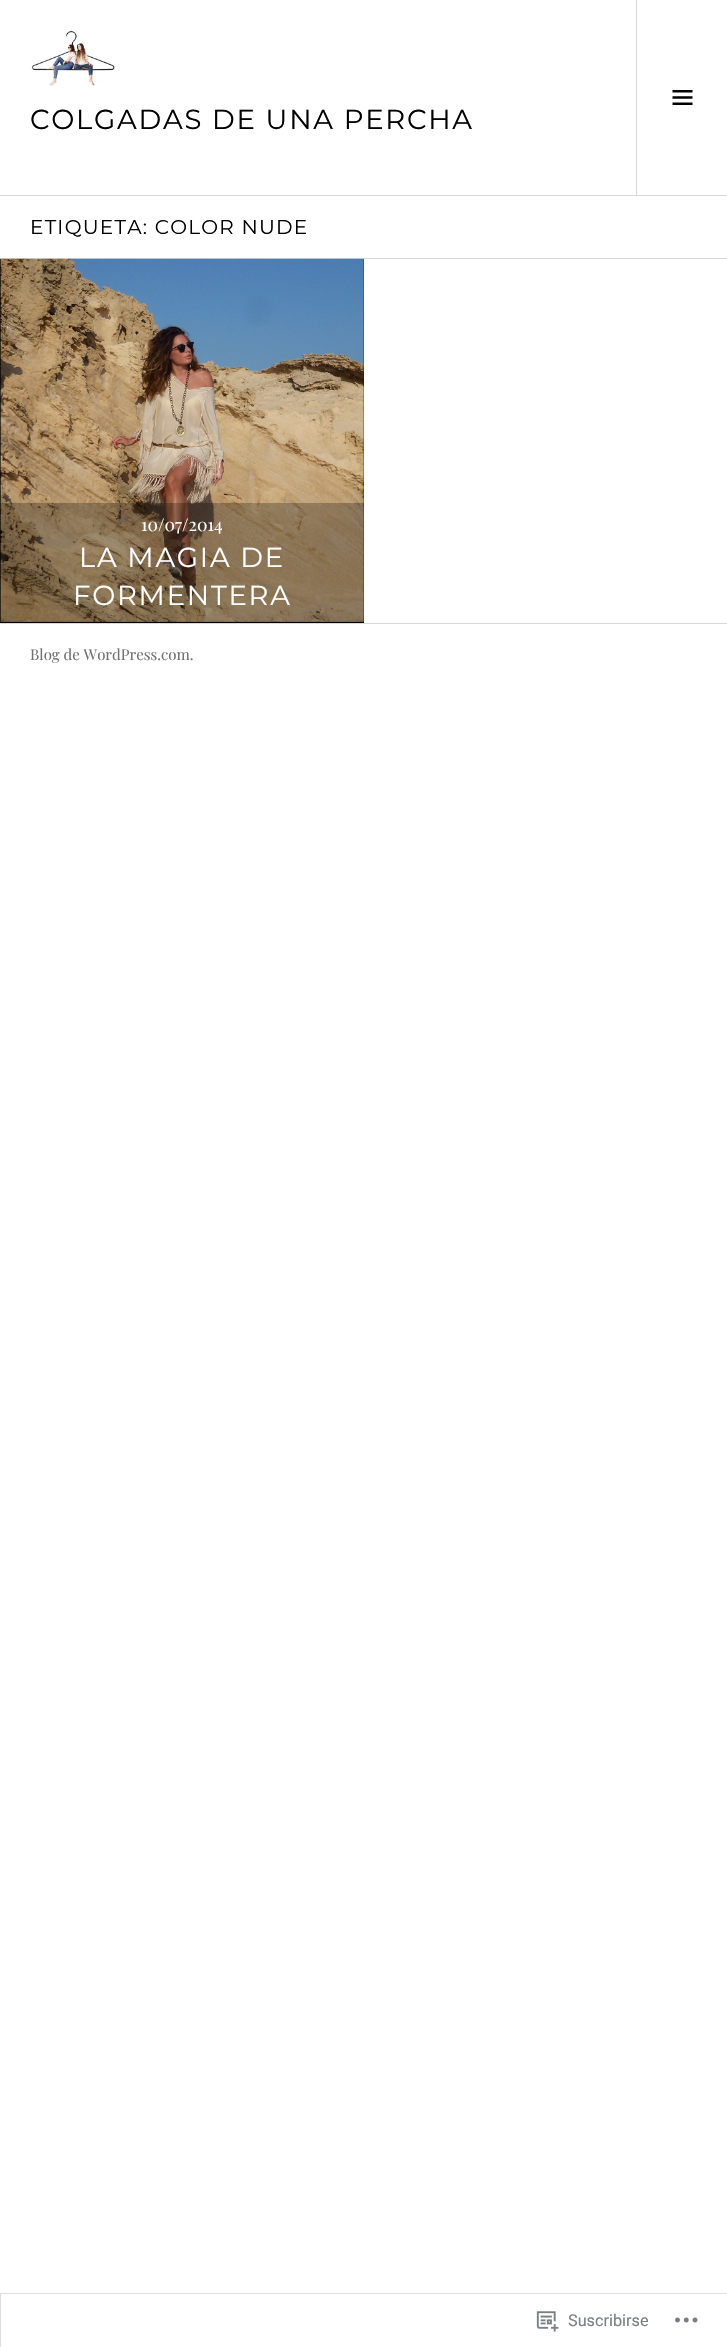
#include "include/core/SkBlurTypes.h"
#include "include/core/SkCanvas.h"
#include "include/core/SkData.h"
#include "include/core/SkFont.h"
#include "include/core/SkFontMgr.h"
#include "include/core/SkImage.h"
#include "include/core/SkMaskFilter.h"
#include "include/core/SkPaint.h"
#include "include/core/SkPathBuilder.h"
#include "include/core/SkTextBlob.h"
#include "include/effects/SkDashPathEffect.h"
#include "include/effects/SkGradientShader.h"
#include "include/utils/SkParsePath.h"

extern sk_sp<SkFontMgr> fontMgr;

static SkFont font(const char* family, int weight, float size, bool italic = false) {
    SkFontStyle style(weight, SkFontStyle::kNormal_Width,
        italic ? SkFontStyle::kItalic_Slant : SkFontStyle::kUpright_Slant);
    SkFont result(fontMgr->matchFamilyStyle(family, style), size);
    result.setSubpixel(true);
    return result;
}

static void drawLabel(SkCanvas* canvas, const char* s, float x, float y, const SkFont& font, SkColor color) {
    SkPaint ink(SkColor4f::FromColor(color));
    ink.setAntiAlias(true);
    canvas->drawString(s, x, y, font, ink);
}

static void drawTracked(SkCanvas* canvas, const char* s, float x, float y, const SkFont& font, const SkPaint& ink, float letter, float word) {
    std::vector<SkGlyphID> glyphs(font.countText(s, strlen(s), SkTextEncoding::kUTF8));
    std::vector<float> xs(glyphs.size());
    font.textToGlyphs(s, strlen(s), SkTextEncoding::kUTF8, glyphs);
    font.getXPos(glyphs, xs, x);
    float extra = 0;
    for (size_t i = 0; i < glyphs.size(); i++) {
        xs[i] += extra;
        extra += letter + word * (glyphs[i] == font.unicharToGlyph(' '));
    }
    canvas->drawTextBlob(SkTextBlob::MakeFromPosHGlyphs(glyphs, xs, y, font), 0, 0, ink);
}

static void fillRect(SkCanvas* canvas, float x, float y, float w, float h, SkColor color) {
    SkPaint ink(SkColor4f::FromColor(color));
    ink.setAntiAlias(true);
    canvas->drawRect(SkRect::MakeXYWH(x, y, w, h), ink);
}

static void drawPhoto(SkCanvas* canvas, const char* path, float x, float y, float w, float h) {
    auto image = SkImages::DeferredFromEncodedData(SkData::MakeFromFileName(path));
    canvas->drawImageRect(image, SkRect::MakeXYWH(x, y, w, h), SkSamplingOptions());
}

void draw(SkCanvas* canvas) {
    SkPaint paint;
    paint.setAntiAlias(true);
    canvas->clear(0xFFFFFFFF);
    fillRect(canvas, 0, 195, 727, 1, 0xFFD8D8D8);
    drawPhoto(canvas, "assets/img1.png", 30, 30, 85, 56);
    SkFont font1 = font("Montserrat", 400, 27.5f);
    paint.setColor(0xFF000000);
    drawTracked(canvas, "COLGADAS DE UNA PERCHA", 30, 129, font1, paint, 1.75f, 0);
    fillRect(canvas, 636, 0, 1, 195, 0xFFD8D8D8);
    drawPhoto(canvas, "assets/img2.png", 672, 90, 21, 15);
    fillRect(canvas, 0, 258, 727, 1, 0xFFD8D8D8);
    SkFont font2 = font("Montserrat", 400, 20);
    drawTracked(canvas, "ETIQUETA: COLOR NUDE", 30, 234, font2, paint, 1.25f, 0);
    fillRect(canvas, 0, 259, 364, 364, 0xFF000000);
    drawPhoto(canvas, "assets/img3.png", 0, 258, 364, 364);
    fillRect(canvas, 0, 503, 364, 119, 0x40000000);
    SkFont font3 = font("Playfair Display", 400, 17.5f);
    drawLabel(canvas, "10/07/2014", 141, 531, font3, 0xFFFFFFFF);
    paint.setColor(0xFFFFFFFF);
    drawTracked(canvas, "LA MAGIA DE", 79, 567, font1, paint, 1.75f, 0);
    drawTracked(canvas, "FORMENTERA", 73, 605, font1, paint, 1.75f, 0);
    fillRect(canvas, 0, 623, 727, 1, 0xFFD8D8D8);
    SkFont font4 = font("Playfair Display", 400, 15);
    drawLabel(canvas, "Blog de WordPress.com.", 30, 660, font4, 0xFF707070);
    paint.setStroke(true);
    paint.setStrokeWidth(1);
    paint.setColor(0xFFDDDDDF);
    canvas->drawRect(SkRect::MakeXYWH(0.5f, 2293.5f, 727, 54), paint);
    drawPhoto(canvas, "assets/img4.png", 536, 2311, 23, 21);
    SkFont font5 = font("Roboto", 400, 16.25f);
    drawLabel(canvas, "Suscribirse", 568, 2326, font5, 0xFF7B7F85);
    drawPhoto(canvas, "assets/img5.png", 675, 2317, 23, 6);
}
